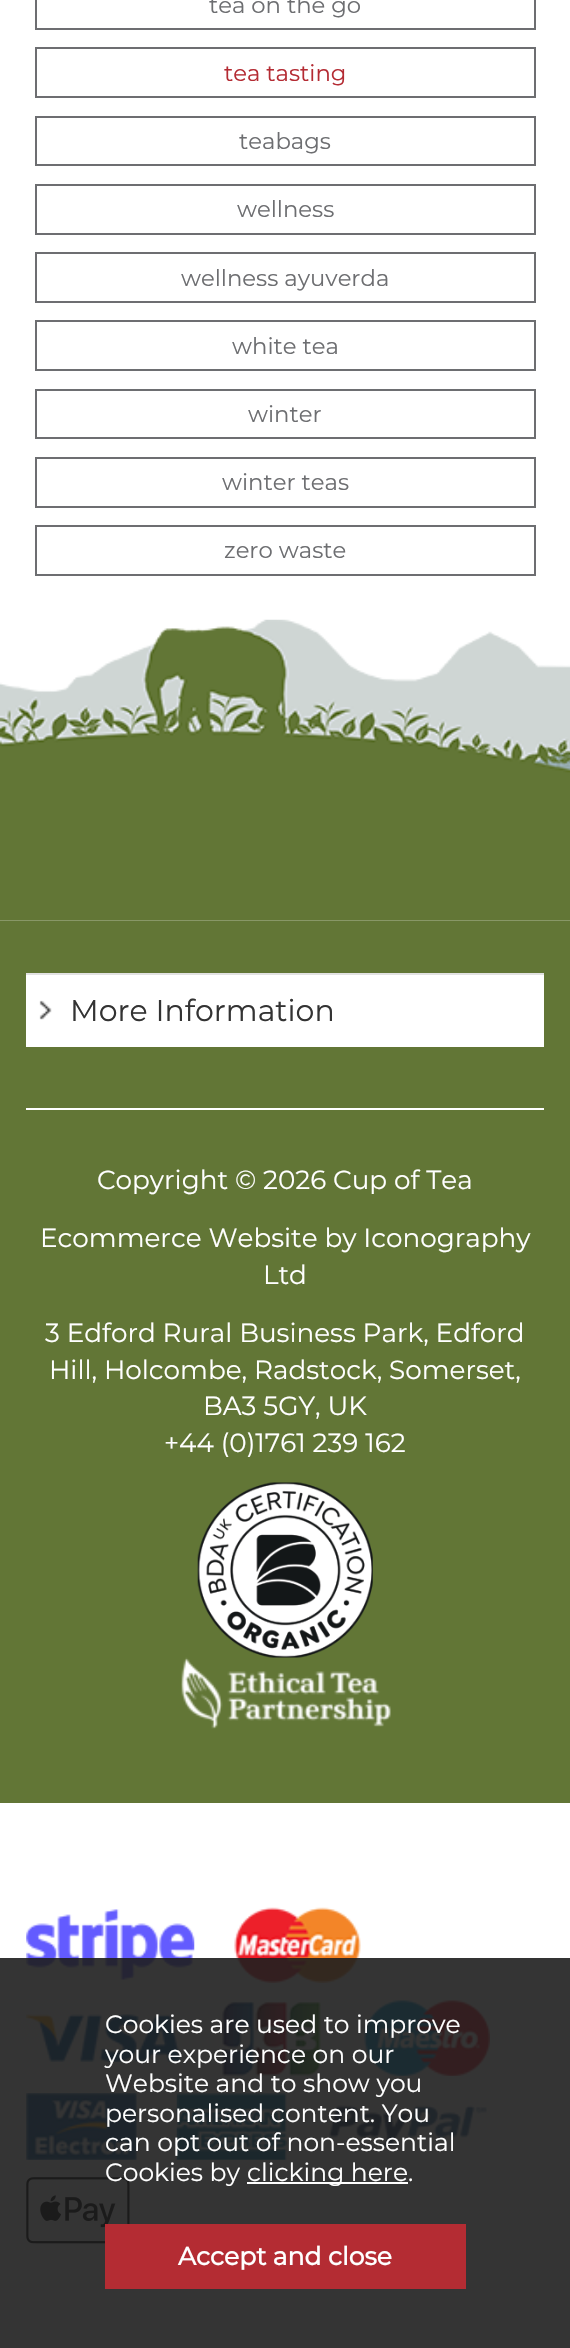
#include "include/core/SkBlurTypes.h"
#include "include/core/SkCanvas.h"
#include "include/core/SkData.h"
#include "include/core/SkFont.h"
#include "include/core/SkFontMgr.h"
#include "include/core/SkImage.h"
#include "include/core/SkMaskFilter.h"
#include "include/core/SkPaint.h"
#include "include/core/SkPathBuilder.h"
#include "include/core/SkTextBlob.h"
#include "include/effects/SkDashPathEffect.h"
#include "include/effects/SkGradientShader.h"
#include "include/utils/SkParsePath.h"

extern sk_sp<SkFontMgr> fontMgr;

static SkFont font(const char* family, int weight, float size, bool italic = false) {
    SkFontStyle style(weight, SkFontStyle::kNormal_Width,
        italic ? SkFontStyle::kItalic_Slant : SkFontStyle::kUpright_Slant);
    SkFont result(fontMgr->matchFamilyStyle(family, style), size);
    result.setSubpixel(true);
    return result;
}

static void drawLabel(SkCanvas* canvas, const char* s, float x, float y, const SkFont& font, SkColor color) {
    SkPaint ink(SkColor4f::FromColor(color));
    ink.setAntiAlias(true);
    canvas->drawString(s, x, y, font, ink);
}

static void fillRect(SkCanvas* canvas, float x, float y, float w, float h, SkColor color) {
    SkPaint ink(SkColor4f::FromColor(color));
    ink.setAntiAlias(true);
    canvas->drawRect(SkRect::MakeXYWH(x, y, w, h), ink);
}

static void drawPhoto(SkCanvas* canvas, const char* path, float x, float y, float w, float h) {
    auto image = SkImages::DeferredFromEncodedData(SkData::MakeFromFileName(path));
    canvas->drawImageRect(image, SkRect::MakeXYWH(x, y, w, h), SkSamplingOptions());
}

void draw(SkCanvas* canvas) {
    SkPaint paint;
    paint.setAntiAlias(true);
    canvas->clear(0xFFFFFFFF);
    paint.setStroke(true);
    paint.setStrokeWidth(2);
    paint.setColor(0xFF6D6E71);
    canvas->drawRect(SkRect::MakeXYWH(36, -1, 499, 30), paint);
    SkFont font1 = font("Montserrat", 100, 22.75f);
    drawLabel(canvas, "tea on the go", 209, 13, font1, 0xFF6D6E71);
    canvas->drawRect(SkRect::MakeXYWH(36, 48, 499, 49), paint);
    drawLabel(canvas, "tea tasting", 224, 81, font1, 0xFFB42B33);
    canvas->drawRect(SkRect::MakeXYWH(36, 117, 499, 48), paint);
    drawLabel(canvas, "teabags", 239, 149, font1, 0xFF6D6E71);
    canvas->drawRect(SkRect::MakeXYWH(36, 185, 499, 49), paint);
    drawLabel(canvas, "wellness", 237, 217, font1, 0xFF6D6E71);
    canvas->drawRect(SkRect::MakeXYWH(36, 253, 499, 49), paint);
    drawLabel(canvas, "wellness ayuverda", 181, 286, font1, 0xFF6D6E71);
    canvas->drawRect(SkRect::MakeXYWH(36, 321, 499, 49), paint);
    drawLabel(canvas, "white tea", 232, 354, font1, 0xFF6D6E71);
    canvas->drawRect(SkRect::MakeXYWH(36, 390, 499, 48), paint);
    drawLabel(canvas, "winter", 248, 422, font1, 0xFF6D6E71);
    canvas->drawRect(SkRect::MakeXYWH(36, 458, 499, 49), paint);
    drawLabel(canvas, "winter teas", 222, 490, font1, 0xFF6D6E71);
    canvas->drawRect(SkRect::MakeXYWH(36, 526, 499, 49), paint);
    drawLabel(canvas, "zero waste", 224, 558, font1, 0xFF6D6E71);
    drawPhoto(canvas, "assets/img1.png", 0, 619, 570, 302);
    fillRect(canvas, 0, 921, 570, 882, 0xFF627636);
    fillRect(canvas, 26, 975, 518, 72, 0xFFFFFFFF);
    drawPhoto(canvas, "assets/img2.png", 39, 1000, 13, 20);
    fillRect(canvas, 26, 973, 518, 2, 0xFFE2E2E2);
    SkFont font2 = font("Montserrat", 100, 30);
    drawLabel(canvas, "More Information", 70, 1021, font2, 0xFF333333);
    fillRect(canvas, 26, 1108, 518, 2, 0xFFFFFFFF);
    SkFont font3 = font("Montserrat", 100, 26.25f);
    drawLabel(canvas, "Copyright © 2026 Cup of Tea", 97, 1189, font3, 0xFFFFFFFF);
    drawLabel(canvas, "Ecommerce Website by Iconography", 40, 1247, font3, 0xFFFFFFFF);
    drawLabel(canvas, "Ltd", 263, 1284, font3, 0xFFFFFFFF);
    drawLabel(canvas, "3 Edford Rural Business Park, Edford", 45, 1342, font3, 0xFFFFFFFF);
    drawLabel(canvas, "Hill, Holcombe, Radstock, Somerset,", 49, 1379, font3, 0xFFFFFFFF);
    drawLabel(canvas, "BA3 5GY, UK", 203, 1415, font3, 0xFFFFFFFF);
    drawLabel(canvas, "+44 (0)1761 239 162", 164, 1452, font3, 0xFFFFFFFF);
    drawPhoto(canvas, "assets/img3.png", 197, 1482, 176, 176);
    drawPhoto(canvas, "assets/img4.png", 181, 1657, 210, 72);
    drawPhoto(canvas, "assets/img5.png", 26, 1909, 169, 71);
    drawPhoto(canvas, "assets/img6.png", 234, 1907, 127, 76);
    drawPhoto(canvas, "assets/img7.png", 26, 2014, 155, 48);
    drawPhoto(canvas, "assets/img8.png", 221, 2001, 100, 75);
    drawPhoto(canvas, "assets/img9.png", 364, 2000, 126, 76);
    drawPhoto(canvas, "assets/img10.png", 26, 2093, 111, 67);
    drawPhoto(canvas, "assets/img11.png", 176, 2093, 111, 67);
    drawPhoto(canvas, "assets/img12.png", 329, 2105, 158, 43);
    drawPhoto(canvas, "assets/img13.png", 26, 2177, 104, 67);
    fillRect(canvas, 0, 1958, 570, 390, 0xE61E1E1E);
    SkFont font4 = font("Montserrat", 100, 25);
    drawLabel(canvas, "Cookies are used to improve", 105, 2033, font4, 0xFFFFFFFF);
    drawLabel(canvas, "your experience on our", 105, 2063, font4, 0xFFFFFFFF);
    drawLabel(canvas, "Website and to show you", 105, 2092, font4, 0xFFFFFFFF);
    drawLabel(canvas, "personalised content. You", 105, 2122, font4, 0xFFFFFFFF);
    drawLabel(canvas, "can opt out of non-essential", 105, 2151, font4, 0xFFFFFFFF);
    drawLabel(canvas, "Cookies by", 105, 2181, font4, 0xFFFFFFFF);
    fillRect(canvas, 247, 2182, 161, 2, 0xFFFFFFFF);
    drawLabel(canvas, "clicking here.", 247, 2181, font4, 0xFFFFFFFF);
    fillRect(canvas, 105, 2224, 361, 65, 0xFFB42C33);
    SkFont font5 = font("Montserrat", 700, 25);
    drawLabel(canvas, "Accept and close", 178, 2265, font5, 0xFFFFFFFF);
}
